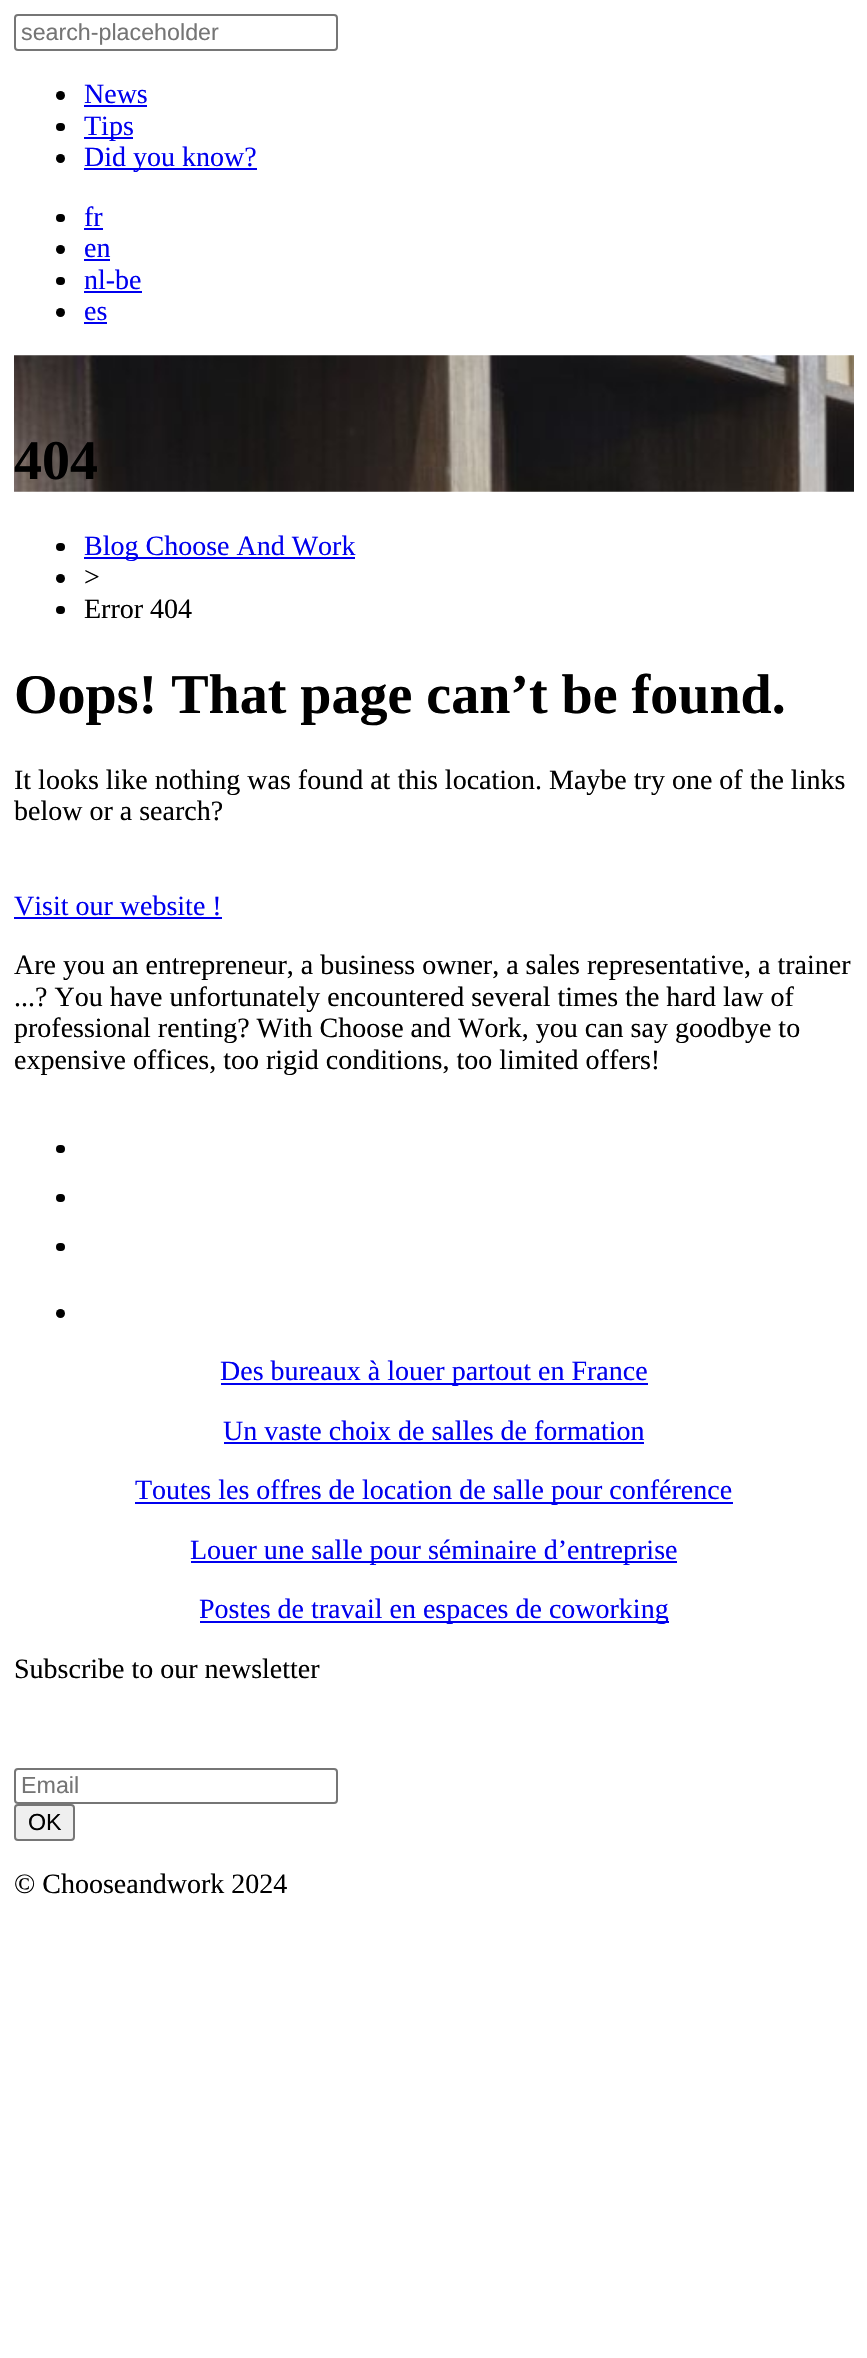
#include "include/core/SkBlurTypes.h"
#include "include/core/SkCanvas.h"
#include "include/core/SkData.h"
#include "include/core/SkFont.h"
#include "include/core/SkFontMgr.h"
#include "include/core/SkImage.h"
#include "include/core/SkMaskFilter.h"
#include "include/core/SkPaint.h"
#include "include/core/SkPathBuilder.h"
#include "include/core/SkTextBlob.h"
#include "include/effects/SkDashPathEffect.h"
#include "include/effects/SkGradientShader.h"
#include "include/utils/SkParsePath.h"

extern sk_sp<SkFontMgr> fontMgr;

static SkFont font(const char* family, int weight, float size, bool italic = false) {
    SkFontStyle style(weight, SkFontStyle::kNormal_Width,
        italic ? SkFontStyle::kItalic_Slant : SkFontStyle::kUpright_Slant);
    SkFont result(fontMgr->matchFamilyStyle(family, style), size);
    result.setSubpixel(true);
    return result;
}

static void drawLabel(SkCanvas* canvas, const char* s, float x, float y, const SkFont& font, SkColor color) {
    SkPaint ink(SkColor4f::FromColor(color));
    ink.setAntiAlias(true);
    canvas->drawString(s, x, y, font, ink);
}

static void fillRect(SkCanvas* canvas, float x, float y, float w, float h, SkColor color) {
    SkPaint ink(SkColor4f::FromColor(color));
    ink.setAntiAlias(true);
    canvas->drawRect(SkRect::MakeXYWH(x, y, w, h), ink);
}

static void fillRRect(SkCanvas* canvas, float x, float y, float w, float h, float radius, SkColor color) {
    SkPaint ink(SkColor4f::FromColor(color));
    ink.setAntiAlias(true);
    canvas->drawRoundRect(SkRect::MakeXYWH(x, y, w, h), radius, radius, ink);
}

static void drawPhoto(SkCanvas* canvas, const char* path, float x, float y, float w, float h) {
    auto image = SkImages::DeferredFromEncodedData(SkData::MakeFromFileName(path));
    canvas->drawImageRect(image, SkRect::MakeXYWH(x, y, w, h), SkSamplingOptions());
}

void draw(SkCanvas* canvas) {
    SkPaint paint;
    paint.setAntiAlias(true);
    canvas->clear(0xFFFFFFFF);
    paint.setStroke(true);
    paint.setStrokeWidth(2);
    paint.setColor(0xFF767676);
    canvas->drawRoundRect(SkRect::MakeXYWH(15, 15, 322, 35), 3, 3, paint);
    SkFont font1 = font("Liberation Sans", 400, 23.25f);
    drawLabel(canvas, "search-placeholder", 21, 40, font1, 0xFF757575);
    paint.setStroke(false);
    paint.setColor(0xFF000000);
    canvas->drawCircle(60.5f, 95.5f, 4.5f, paint);
    SkFont font2 = font("Liberation Serif", 400, 28);
    drawLabel(canvas, "News", 84, 103, font2, 0xFF0000EE);
    fillRect(canvas, 84, 105, 63, 2, 0xFF0000EE);
    fillRRect(canvas, 56, 123, 9, 8, 4, 0xFF000000);
    fillRect(canvas, 84, 137, 49, 2, 0xFF0000EE);
    drawLabel(canvas, "Tips", 84, 135, font2, 0xFF0000EE);
    canvas->drawCircle(60.5f, 158.5f, 4.5f, paint);
    fillRect(canvas, 84, 168, 173, 2, 0xFF0000EE);
    drawLabel(canvas, "Did you know?", 84, 166, font2, 0xFF0000EE);
    fillRRect(canvas, 56, 214, 9, 8, 4, 0xFF000000);
    drawLabel(canvas, "fr", 84, 226, font2, 0xFF0000EE);
    fillRect(canvas, 84, 228, 19, 2, 0xFF0000EE);
    canvas->drawCircle(60.5f, 249.5f, 4.5f, paint);
    drawLabel(canvas, "en", 84, 257, font2, 0xFF0000EE);
    fillRect(canvas, 84, 259, 26, 2, 0xFF0000EE);
    fillRRect(canvas, 56, 277, 9, 8, 4, 0xFF000000);
    drawLabel(canvas, "nl-be", 84, 289, font2, 0xFF0000EE);
    fillRect(canvas, 84, 291, 58, 2, 0xFF0000EE);
    canvas->drawCircle(60.5f, 312.5f, 4.5f, paint);
    drawLabel(canvas, "es", 84, 320, font2, 0xFF0000EE);
    fillRect(canvas, 84, 322, 23, 2, 0xFF0000EE);
    drawPhoto(canvas, "assets/img1.png", 14, 355, 840, 137);
    SkFont font3 = font("Liberation Serif", 700, 56);
    drawLabel(canvas, "404", 14, 479, font3, 0xFF000000);
    fillRRect(canvas, 56, 543, 9, 8, 4, 0xFF000000);
    fillRect(canvas, 84, 557, 271, 2, 0xFF0000EE);
    drawLabel(canvas, "Blog Choose And Work", 84, 555, font2, 0xFF0000EE);
    canvas->drawCircle(60.5f, 578.5f, 4.5f, paint);
    drawLabel(canvas, ">", 84, 586, font2, 0xFF000000);
    fillRRect(canvas, 56, 606, 9, 8, 4, 0xFF000000);
    drawLabel(canvas, "Error 404", 84, 618, font2, 0xFF000000);
    drawLabel(canvas, "Oops! That page can’t be found.", 14, 713, font3, 0xFF000000);
    drawLabel(canvas, "It looks like nothing was found at this location. Maybe try one of the links", 14, 789, font2, 0xFF000000);
    drawLabel(canvas, "below or a search?", 14, 820, font2, 0xFF000000);
    drawLabel(canvas, "Visit our website !", 14, 915, font2, 0xFF0000EE);
    fillRect(canvas, 14, 917, 208, 2, 0xFF0000EE);
    drawLabel(canvas, "Are you an entrepreneur, a business owner, a sales representative, a trainer", 14, 974, font2, 0xFF000000);
    drawLabel(canvas, "...? You have unfortunately encountered several times the hard law of", 14, 1006, font2, 0xFF000000);
    drawLabel(canvas, "professional renting? With Choose and Work, you can say goodbye to", 14, 1037, font2, 0xFF000000);
    drawLabel(canvas, "expensive offices, too rigid conditions, too limited offers!", 14, 1069, font2, 0xFF000000);
    fillRRect(canvas, 56, 1145, 9, 8, 4, 0xFF000000);
    fillRRect(canvas, 56, 1194, 9, 8, 4, 0xFF000000);
    fillRRect(canvas, 56, 1243, 9, 8, 4, 0xFF000000);
    canvas->drawCircle(60.5f, 1313.5f, 4.5f, paint);
    fillRect(canvas, 221, 1383, 427, 2, 0xFF0000EE);
    drawLabel(canvas, "Des bureaux à louer partout en France", 220, 1380, font2, 0xFF0000EE);
    drawLabel(canvas, "Un vaste choix de salles de formation", 223, 1440, font2, 0xFF0000EE);
    fillRect(canvas, 224, 1442, 420, 2, 0xFF0000EE);
    fillRect(canvas, 135, 1502, 598, 2, 0xFF0000EE);
    drawLabel(canvas, "Toutes les offres de location de salle pour conférence", 135, 1499, font2, 0xFF0000EE);
    fillRect(canvas, 191, 1561, 486, 2, 0xFF0000EE);
    drawLabel(canvas, "Louer une salle pour séminaire d’entreprise", 190, 1559, font2, 0xFF0000EE);
    fillRect(canvas, 200, 1621, 469, 2, 0xFF0000EE);
    drawLabel(canvas, "Postes de travail en espaces de coworking", 199, 1618, font2, 0xFF0000EE);
    drawLabel(canvas, "Subscribe to our newsletter", 14, 1678, font2, 0xFF000000);
    paint.setStroke(true);
    paint.setColor(0xFF767676);
    canvas->drawRoundRect(SkRect::MakeXYWH(15, 1769, 322, 34), 3, 3, paint);
    drawLabel(canvas, "Email", 21, 1793, font1, 0xFF757575);
    paint.setStroke(false);
    paint.setColor(0xFFEFEFEF);
    canvas->drawRoundRect(SkRect::MakeXYWH(15, 1805, 59, 35), 3, 3, paint);
    paint.setStroke(true);
    paint.setColor(0xFF767676);
    canvas->drawRoundRect(SkRect::MakeXYWH(15, 1805, 59, 35), 3, 3, paint);
    drawLabel(canvas, "OK", 28, 1830, font1, 0xFF000000);
    drawLabel(canvas, "© Chooseandwork 2024", 14, 1893, font2, 0xFF000000);
}
